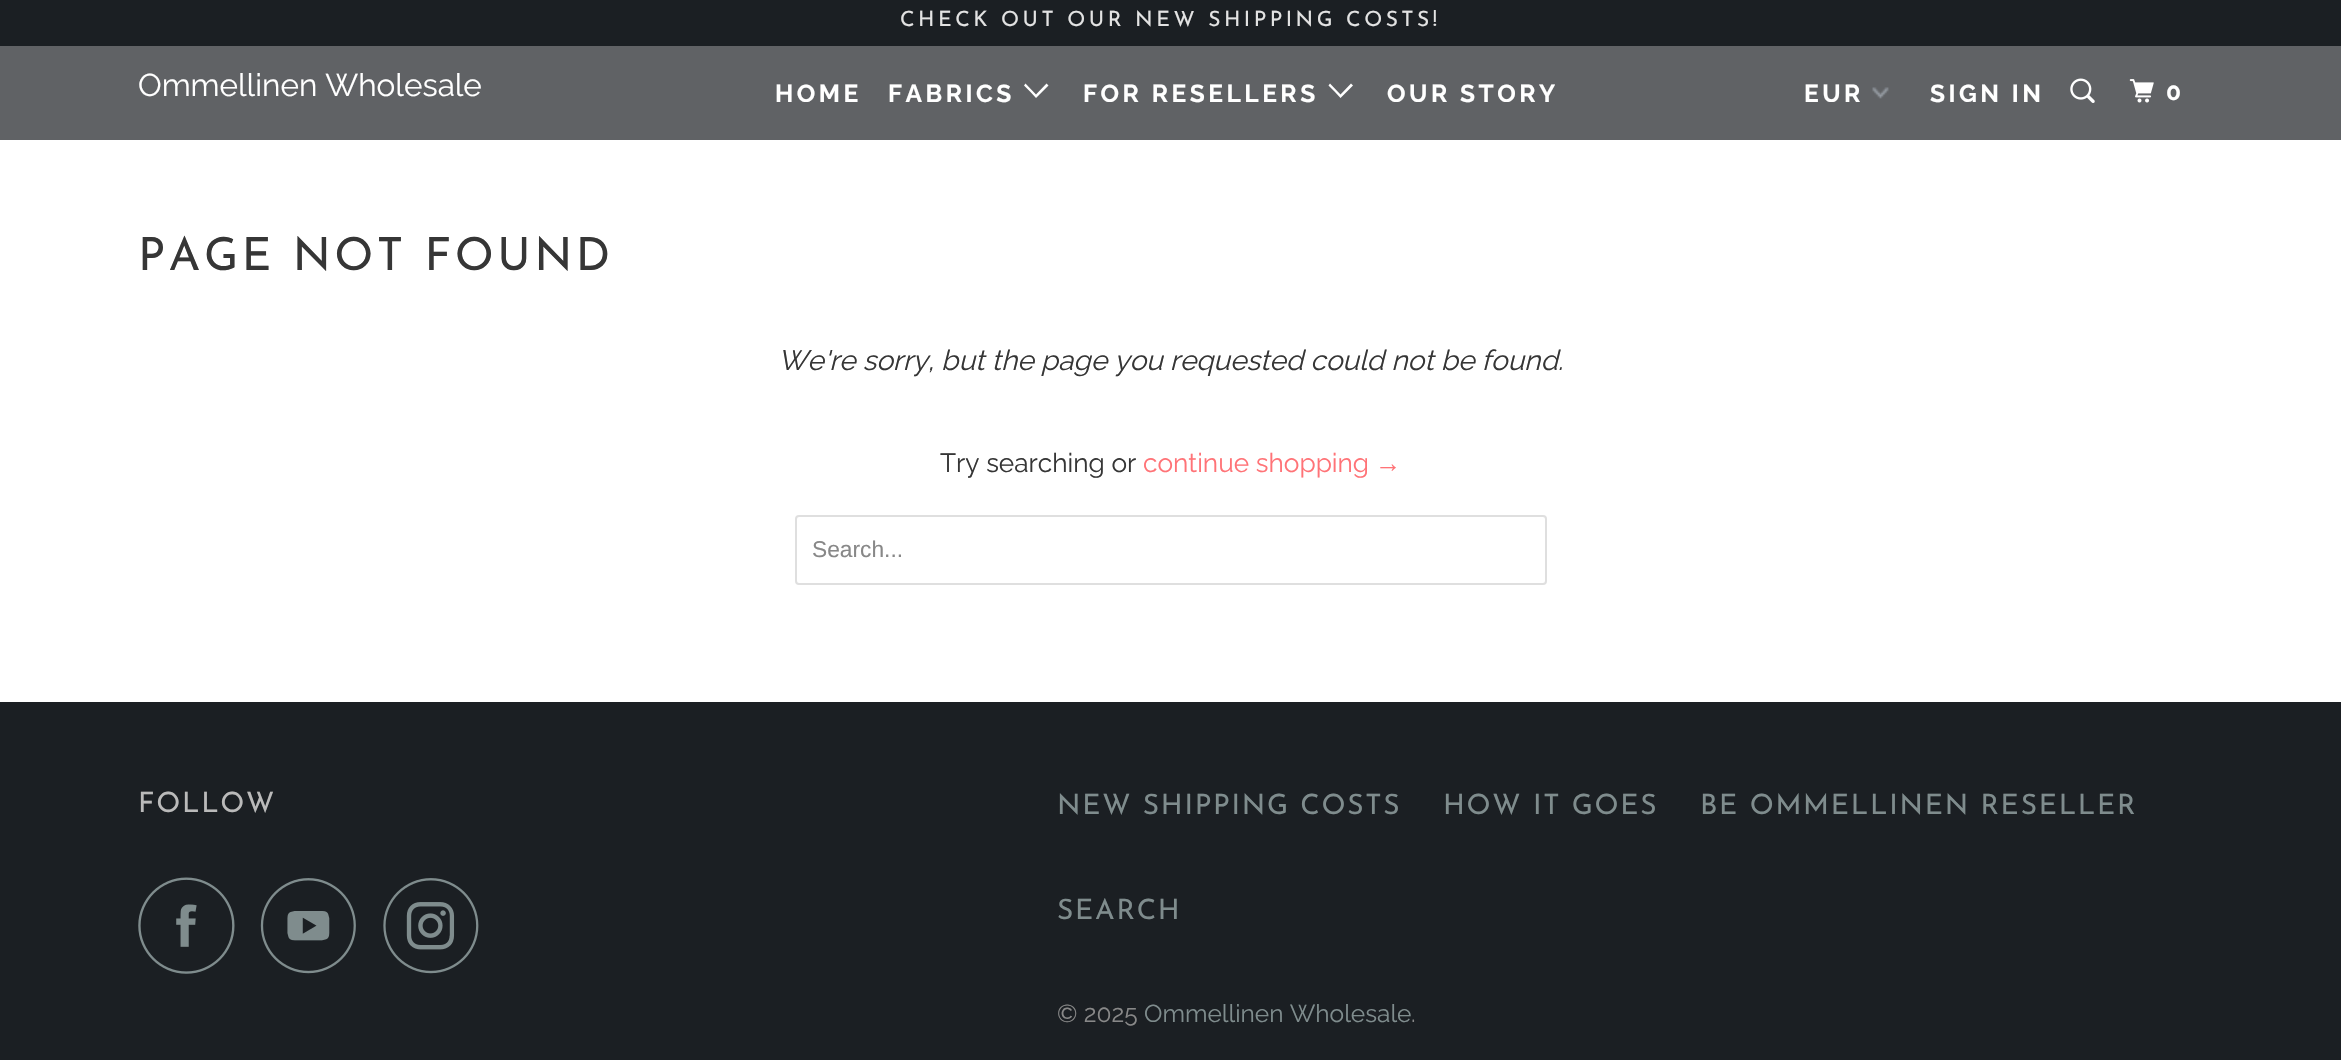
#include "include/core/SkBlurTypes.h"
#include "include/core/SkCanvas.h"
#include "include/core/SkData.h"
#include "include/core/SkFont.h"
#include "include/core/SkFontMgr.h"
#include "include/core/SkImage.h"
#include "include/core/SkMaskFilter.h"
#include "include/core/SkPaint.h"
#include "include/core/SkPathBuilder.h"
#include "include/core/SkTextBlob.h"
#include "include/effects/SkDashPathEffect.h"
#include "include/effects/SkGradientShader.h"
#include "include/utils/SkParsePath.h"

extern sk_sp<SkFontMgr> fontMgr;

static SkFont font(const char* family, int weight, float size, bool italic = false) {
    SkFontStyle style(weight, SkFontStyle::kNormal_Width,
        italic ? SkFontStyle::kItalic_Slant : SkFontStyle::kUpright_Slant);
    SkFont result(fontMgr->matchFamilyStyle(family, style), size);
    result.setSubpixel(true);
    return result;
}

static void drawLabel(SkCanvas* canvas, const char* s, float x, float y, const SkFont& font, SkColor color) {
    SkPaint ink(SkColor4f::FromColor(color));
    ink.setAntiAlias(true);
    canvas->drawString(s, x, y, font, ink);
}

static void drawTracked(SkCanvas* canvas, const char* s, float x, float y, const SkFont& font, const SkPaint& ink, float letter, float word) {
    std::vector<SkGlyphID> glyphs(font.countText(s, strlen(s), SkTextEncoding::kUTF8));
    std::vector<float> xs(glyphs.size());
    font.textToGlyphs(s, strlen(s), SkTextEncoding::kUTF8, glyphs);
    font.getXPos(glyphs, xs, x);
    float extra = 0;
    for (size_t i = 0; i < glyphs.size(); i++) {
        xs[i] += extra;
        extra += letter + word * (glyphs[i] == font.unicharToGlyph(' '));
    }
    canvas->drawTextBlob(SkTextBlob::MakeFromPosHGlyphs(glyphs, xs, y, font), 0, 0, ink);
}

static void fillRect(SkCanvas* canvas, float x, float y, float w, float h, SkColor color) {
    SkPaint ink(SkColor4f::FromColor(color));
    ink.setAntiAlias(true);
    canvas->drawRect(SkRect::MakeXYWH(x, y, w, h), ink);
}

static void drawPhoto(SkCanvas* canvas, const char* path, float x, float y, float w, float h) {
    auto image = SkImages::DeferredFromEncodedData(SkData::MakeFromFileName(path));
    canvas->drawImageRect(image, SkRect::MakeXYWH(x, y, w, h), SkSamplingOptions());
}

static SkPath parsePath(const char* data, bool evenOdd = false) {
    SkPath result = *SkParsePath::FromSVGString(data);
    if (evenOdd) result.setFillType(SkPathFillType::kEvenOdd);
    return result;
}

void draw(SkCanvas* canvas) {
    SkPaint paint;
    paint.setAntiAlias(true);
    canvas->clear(0xFFFFFFFF);
    fillRect(canvas, 0, 0, 2341, 46, 0xFF1B1F23);
    SkFont font1 = font("Josefin Sans", 400, 21);
    paint.setColor(0xFFE3E3E3);
    drawTracked(canvas, "CHECK OUT OUR NEW SHIPPING COSTS!", 900, 26, font1, paint, 3.5f, 0);
    fillRect(canvas, 0, 46, 2341, 94, 0xFF606265);
    SkFont font2 = font("Raleway", 400, 31.5f);
    drawLabel(canvas, "Ommellinen Wholesale", 138, 96, font2, 0xFFFFFFFF);
    SkFont font3 = font("Raleway", 700, 24.5f);
    paint.setColor(0xFFFFFFFF);
    drawTracked(canvas, "HOME", 775, 102, font3, paint, 3.5f, 0);
    drawTracked(canvas, "FABRICS", 888, 102, font3, paint, 3.5f, 0);
    canvas->drawPath(parsePath("M1030 91.5L1024 85.5L1025.5 83.5L1036 94.5L1046.5 83.5L1048.5 85.5L1036 98Z"), paint);
    drawTracked(canvas, "FOR RESELLERS", 1083, 102, font3, paint, 3.5f, 0);
    canvas->drawPath(parsePath("M1334.5 91.5L1328.5 85.5L1330 83.5L1340.5 94.5L1351 83.5L1353 85.5L1340.5 98Z"), paint);
    drawTracked(canvas, "OUR STORY", 1387, 102, font3, paint, 3.5f, 0);
    drawPhoto(canvas, "assets/img1.png", 1872, 87, 17, 12);
    drawTracked(canvas, "EUR", 1804, 102, font3, paint, 3.5f, 0);
    drawTracked(canvas, "SIGN IN", 1930, 102, font3, paint, 3.5f, 0);
    drawPhoto(canvas, "assets/img2.png", 2070, 78, 25, 25);
    drawPhoto(canvas, "assets/img3.png", 2129, 79, 25, 24);
    drawTracked(canvas, "0", 2166, 100, font3, paint, 3.5f, 0);
    SkFont font4 = font("Josefin Sans", 400, 45.5f);
    paint.setColor(0xFF363636);
    drawTracked(canvas, "PAGE NOT FOUND", 138, 270, font4, paint, 3.5f, 0);
    SkFont font5 = font("Raleway", 400, 28, true);
    drawLabel(canvas, "We're sorry, but the page you requested could not be found.", 778, 370, font5, 0xFF363636);
    SkFont font6 = font("Raleway", 400, 26.25f);
    drawLabel(canvas, "Try searching or", 940, 472, font6, 0xFF363636);
    drawLabel(canvas, "continue shopping", 1143, 472, font6, 0xFFFF7377);
    SkFont font7 = font("Liberation Serif", 400, 26.25f);
    drawLabel(canvas, "→", 1375, 472, font7, 0xFFFF7377);
    paint.setStroke(true);
    paint.setStrokeWidth(2);
    paint.setColor(0xFFDFDFDF);
    canvas->drawRoundRect(SkRect::MakeXYWH(796, 516, 750, 68), 3, 3, paint);
    SkFont font8 = font("Liberation Sans", 400, 22.75f);
    drawLabel(canvas, "Search...", 812, 557, font8, 0xFF888888);
    fillRect(canvas, 0, 702, 2341, 358, 0xFF1B1F23);
    SkFont font9 = font("Josefin Sans", 400, 28);
    paint.setStroke(false);
    paint.setColor(0xFFBABABA);
    drawTracked(canvas, "FOLLOW", 138, 812, font9, paint, 1.75f, 0);
    drawPhoto(canvas, "assets/img4.png", 138, 877, 97, 97);
    drawPhoto(canvas, "assets/img5.png", 260, 878, 96, 96);
    drawPhoto(canvas, "assets/img6.png", 383, 878, 96, 96);
    paint.setColor(0xFF7F8C8D);
    drawTracked(canvas, "NEW SHIPPING COSTS", 1057, 814, font9, paint, 1.75f, 0);
    drawTracked(canvas, "HOW IT GOES", 1443, 814, font9, paint, 1.75f, 0);
    drawTracked(canvas, "BE OMMELLINEN RESELLER", 1700, 814, font9, paint, 1.75f, 0);
    drawTracked(canvas, "SEARCH", 1057, 919, font9, paint, 1.75f, 0);
    SkFont font10 = font("Raleway", 400, 24.5f);
    drawLabel(canvas, "© 2025", 1057, 1022, font10, 0xFF888888);
    drawLabel(canvas, "Ommellinen Wholesale", 1144, 1022, font10, 0xFF7F8C8D);
    drawLabel(canvas, ".", 1411, 1022, font10, 0xFF888888);
}
